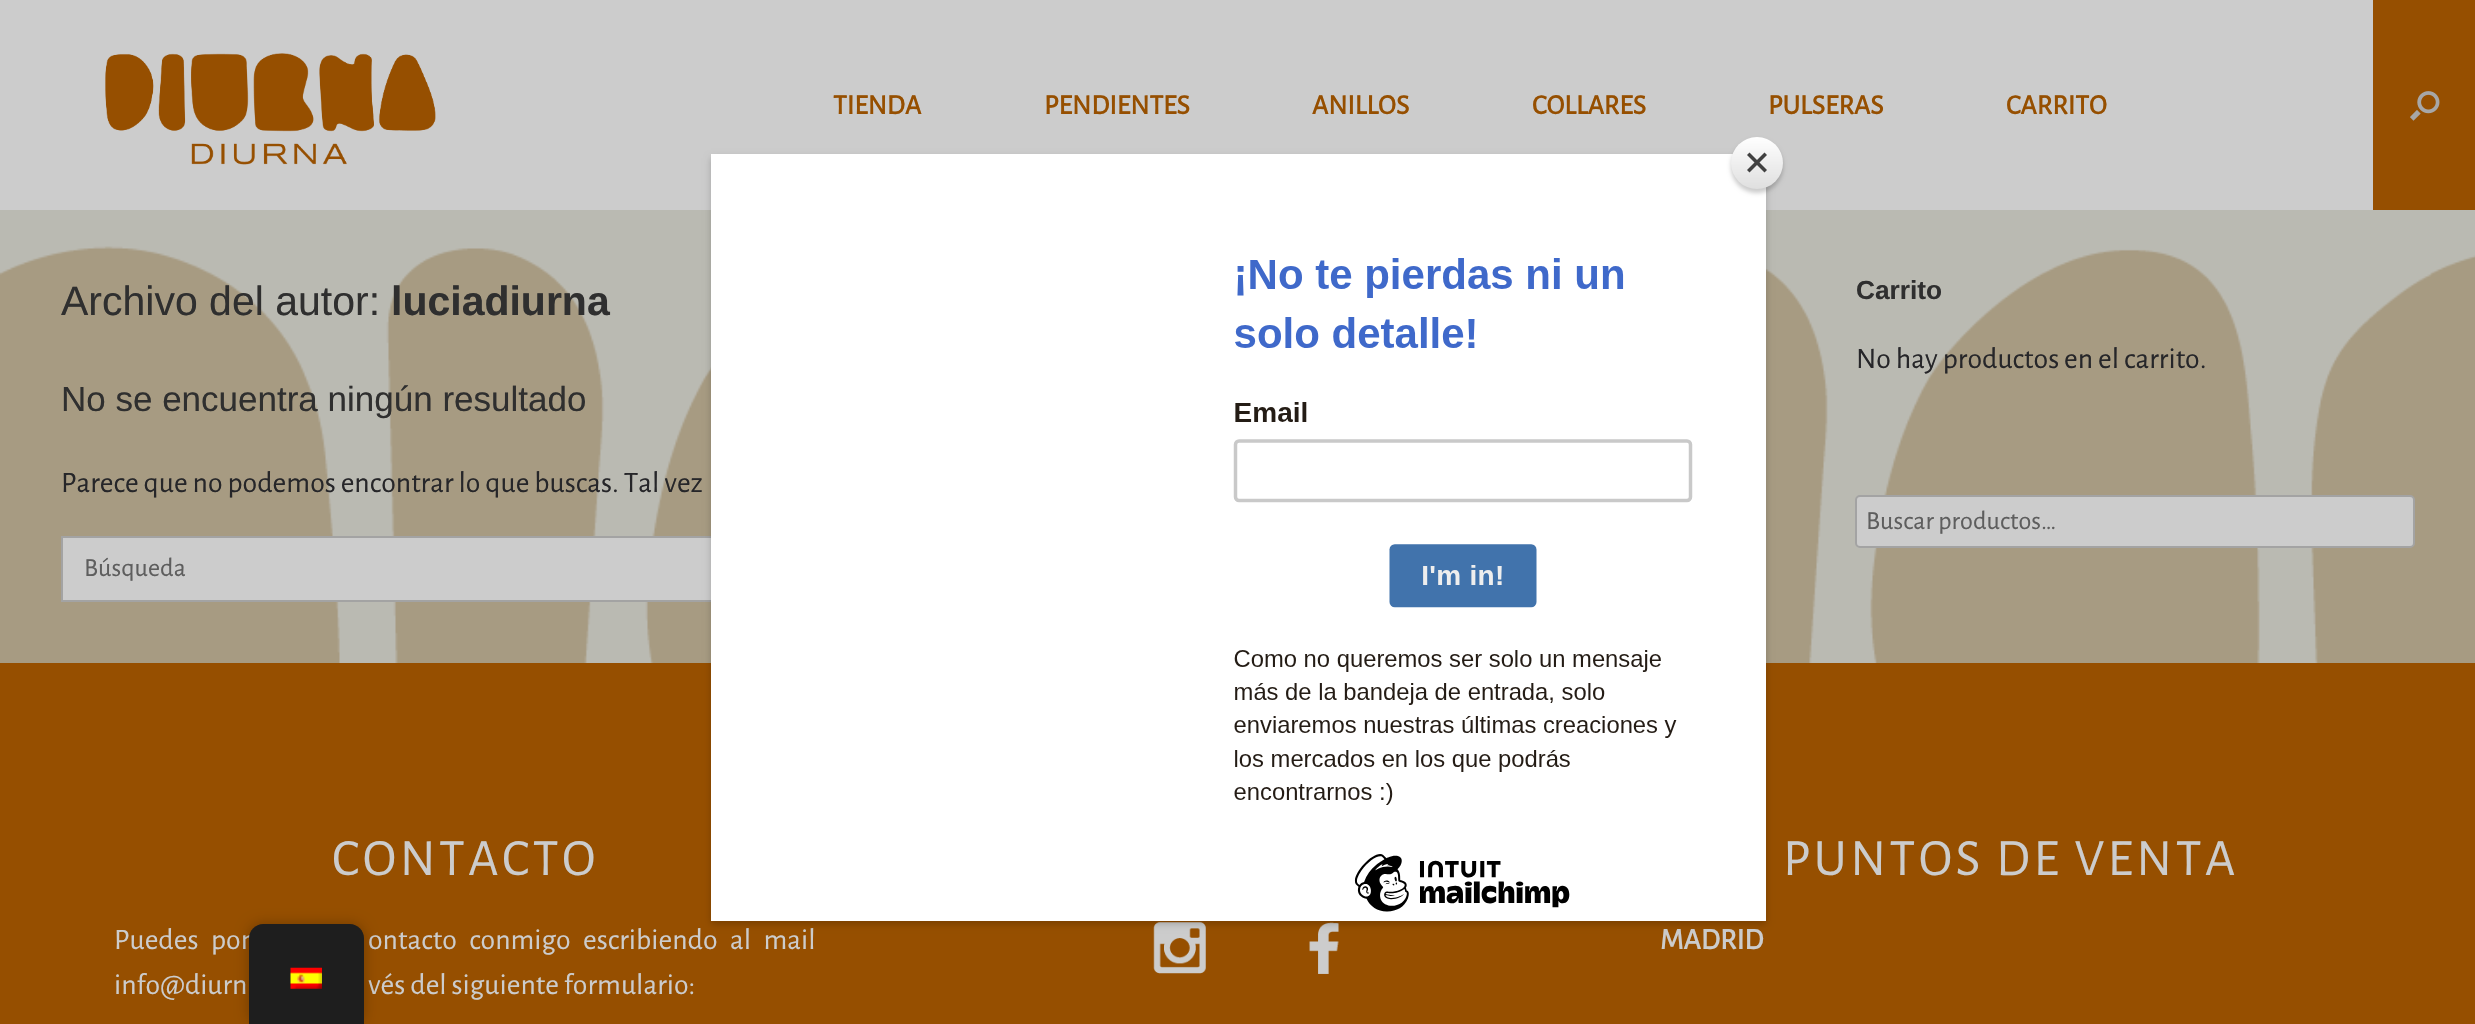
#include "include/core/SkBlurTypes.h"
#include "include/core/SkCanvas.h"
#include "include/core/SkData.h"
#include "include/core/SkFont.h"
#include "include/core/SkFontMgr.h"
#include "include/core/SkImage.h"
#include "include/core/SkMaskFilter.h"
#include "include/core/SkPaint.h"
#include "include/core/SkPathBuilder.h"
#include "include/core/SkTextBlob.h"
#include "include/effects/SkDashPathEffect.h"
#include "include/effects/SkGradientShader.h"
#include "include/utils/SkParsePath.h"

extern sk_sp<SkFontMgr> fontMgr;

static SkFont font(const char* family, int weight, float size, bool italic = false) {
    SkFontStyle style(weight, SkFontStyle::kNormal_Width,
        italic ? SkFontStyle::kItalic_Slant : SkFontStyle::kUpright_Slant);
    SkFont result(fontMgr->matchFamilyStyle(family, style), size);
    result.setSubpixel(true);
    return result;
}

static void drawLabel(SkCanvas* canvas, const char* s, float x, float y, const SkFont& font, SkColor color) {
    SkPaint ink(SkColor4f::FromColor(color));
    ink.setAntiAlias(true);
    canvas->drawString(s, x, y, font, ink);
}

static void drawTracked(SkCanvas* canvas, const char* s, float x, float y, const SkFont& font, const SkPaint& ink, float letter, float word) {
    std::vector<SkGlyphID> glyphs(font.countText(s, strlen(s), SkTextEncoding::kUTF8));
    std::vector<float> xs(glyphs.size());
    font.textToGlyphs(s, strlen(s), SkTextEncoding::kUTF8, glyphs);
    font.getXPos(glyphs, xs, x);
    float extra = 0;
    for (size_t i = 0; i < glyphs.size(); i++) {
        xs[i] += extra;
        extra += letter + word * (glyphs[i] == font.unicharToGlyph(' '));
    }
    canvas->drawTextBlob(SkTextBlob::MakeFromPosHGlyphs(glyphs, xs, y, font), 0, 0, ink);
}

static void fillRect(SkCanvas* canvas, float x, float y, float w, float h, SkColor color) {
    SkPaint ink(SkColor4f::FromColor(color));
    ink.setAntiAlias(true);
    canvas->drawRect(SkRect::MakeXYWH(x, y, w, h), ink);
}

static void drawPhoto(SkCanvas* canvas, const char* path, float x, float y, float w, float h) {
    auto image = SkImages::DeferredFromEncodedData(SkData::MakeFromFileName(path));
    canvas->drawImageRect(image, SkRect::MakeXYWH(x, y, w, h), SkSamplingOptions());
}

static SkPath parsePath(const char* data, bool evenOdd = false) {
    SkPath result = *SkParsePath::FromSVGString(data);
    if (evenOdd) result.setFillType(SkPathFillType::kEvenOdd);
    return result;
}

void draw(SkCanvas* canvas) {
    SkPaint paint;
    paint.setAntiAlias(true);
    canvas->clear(0xFFFFFFFF);
    fillRect(canvas, 0, 0, 2373, 210, 0xFFCCCCCC);
    drawPhoto(canvas, "assets/img1.png", 105, 53, 331, 112);
    SkFont font1 = font("Alegreya Sans", 700, 28);
    drawLabel(canvas, "TIENDA", 833, 114, font1, 0xFF964F00);
    drawLabel(canvas, "PENDIENTES", 1044, 114, font1, 0xFF964F00);
    drawLabel(canvas, "ANILLOS", 1312, 114, font1, 0xFF964F00);
    drawLabel(canvas, "COLLARES", 1532, 114, font1, 0xFF964F00);
    drawLabel(canvas, "PULSERAS", 1768, 114, font1, 0xFF964F00);
    drawLabel(canvas, "CARRITO", 2006, 114, font1, 0xFF964F00);
    fillRect(canvas, 2373, 0, 102, 210, 0xFF964F00);
    drawPhoto(canvas, "assets/img2.png", 2410, 91, 30, 30);
    drawPhoto(canvas, "assets/img3.png", 0, 210, 2475, 453);
    SkFont font2 = font("Liberation Sans", 400, 41);
    drawLabel(canvas, "Archivo del autor:", 61, 315, font2, 0xFF2F2F2F);
    SkFont font3 = font("Liberation Sans", 700, 41);
    drawLabel(canvas, "luciadiurna", 391, 315, font3, 0xFF2F2F2F);
    SkFont font4 = font("Liberation Sans", 400, 35);
    drawLabel(canvas, "No se encuentra ningún resultado", 61, 411, font4, 0xFF2F2F2F);
    SkFont font5 = font("Alegreya Sans", 400, 29.75f);
    drawLabel(canvas, "Parece que no podemos encontrar lo que buscas. Tal vez", 61, 492, font5, 0xFF262629);
    fillRect(canvas, 63, 538, 648, 62, 0xFFCCCCCC);
    paint.setStroke(true);
    paint.setStrokeWidth(2);
    paint.setColor(0xFFA3A3A3);
    canvas->drawRect(SkRect::MakeXYWH(62, 537, 1677, 64), paint);
    SkFont font6 = font("Alegreya Sans", 400, 26.25f);
    drawLabel(canvas, "Búsqueda", 84, 576, font6, 0xFF5E5E5E);
    SkFont font7 = font("Liberation Sans", 700, 26.25f);
    drawLabel(canvas, "Carrito", 1856, 299, font7, 0xFF2F2F2F);
    drawLabel(canvas, "No hay productos en el carrito.", 1856, 368, font5, 0xFF262629);
    paint.setStroke(false);
    paint.setColor(0xFFCCCCCC);
    canvas->drawRoundRect(SkRect::MakeXYWH(1856, 496, 558, 51), 4, 4, paint);
    paint.setStroke(true);
    paint.setColor(0xFFA3A3A3);
    canvas->drawRoundRect(SkRect::MakeXYWH(1856, 496, 558, 51), 4, 4, paint);
    drawLabel(canvas, "Buscar productos…", 1866, 529, font6, 0xFF5E5E5E);
    fillRect(canvas, 0, 663, 2475, 361, 0xFF964F00);
    SkFont font8 = font("Alegreya Sans", 400, 52.5f);
    paint.setStroke(false);
    paint.setColor(0xFFCCCCCC);
    drawTracked(canvas, "CONTACTO", 332, 875, font8, paint, 3.5f, 0);
    drawTracked(canvas, "Puedes pon", 114, 949, font5, paint, 0, 7.5f);
    drawTracked(canvas, "ontacto conmigo escribiendo al mail", 368, 949, font5, paint, 0, 7.5f);
    drawLabel(canvas, "info@diurn", 114, 994, font5, 0xFFCCCCCC);
    drawLabel(canvas, "vés del siguiente formulario:", 368, 994, font5, 0xFFCCCCCC);
    drawPhoto(canvas, "assets/img4.png", 1153, 922, 53, 52);
    drawPhoto(canvas, "assets/img5.png", 1309, 922, 30, 52);
    drawTracked(canvas, "PUNTOS DE VENTA", 1783, 875, font8, paint, 3.5f, 0);
    SkFont font9 = font("Alegreya Sans", 700, 29.75f);
    drawLabel(canvas, "MADRID", 1660, 949, font9, 0xFFCCCCCC);
    paint.setColor(0x33000000);
    paint.setMaskFilter(SkMaskFilter::MakeBlur(kNormal_SkBlurStyle, 3.5f));
    canvas->drawRect(SkRect::MakeXYWH(711, 158, 1055, 766), paint);
    paint.setMaskFilter(nullptr);
    drawPhoto(canvas, "assets/img6.png", 711, 154, 1055, 767);
    paint.setMaskFilter(SkMaskFilter::MakeBlur(kNormal_SkBlurStyle, 2));
    canvas->drawRoundRect(SkRect::MakeXYWH(1731, 140, 52, 53), 26, 26, paint);
    paint.setMaskFilter(nullptr);
    {
        const SkColor colors[] = {0xFFDFDFDF, 0xFFFFFFFF};
        const float stops[] = {0, 1};
        const SkPoint ends[] = {{1731, 189}, {1731, 137}};
        paint.setShader(SkGradientShader::MakeLinear(ends, colors, stops, 2, SkTileMode::kClamp));
        paint.setAlpha(255);
    }
    canvas->drawCircle(1757, 163, 26, paint);
    paint.setShader(nullptr);
    paint.setColor(0xFF414141);
    canvas->drawPath(parsePath("M1764.5 152.5L1767 155L1749.5 172.5L1747 170Z"), paint);
    canvas->drawPath(parsePath("M1747 155L1749.5 152.5L1767 170L1764.5 172.5Z"), paint);
    paint.setColor(0x40000000);
    paint.setMaskFilter(SkMaskFilter::MakeBlur(kNormal_SkBlurStyle, 7));
    canvas->drawRoundRect(SkRect::MakeXYWH(249, 924, 115, 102), 14, 14, paint);
    paint.setMaskFilter(nullptr);
    paint.setColor(0xFF1E1E1E);
    canvas->drawPath(parsePath("M263 924H350C357.5 924 364 930.5 364 938V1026H249V938C249 930.5 255.5 924 263 924Z"), paint);
    drawPhoto(canvas, "assets/img7.png", 290, 967, 32, 22);
}
